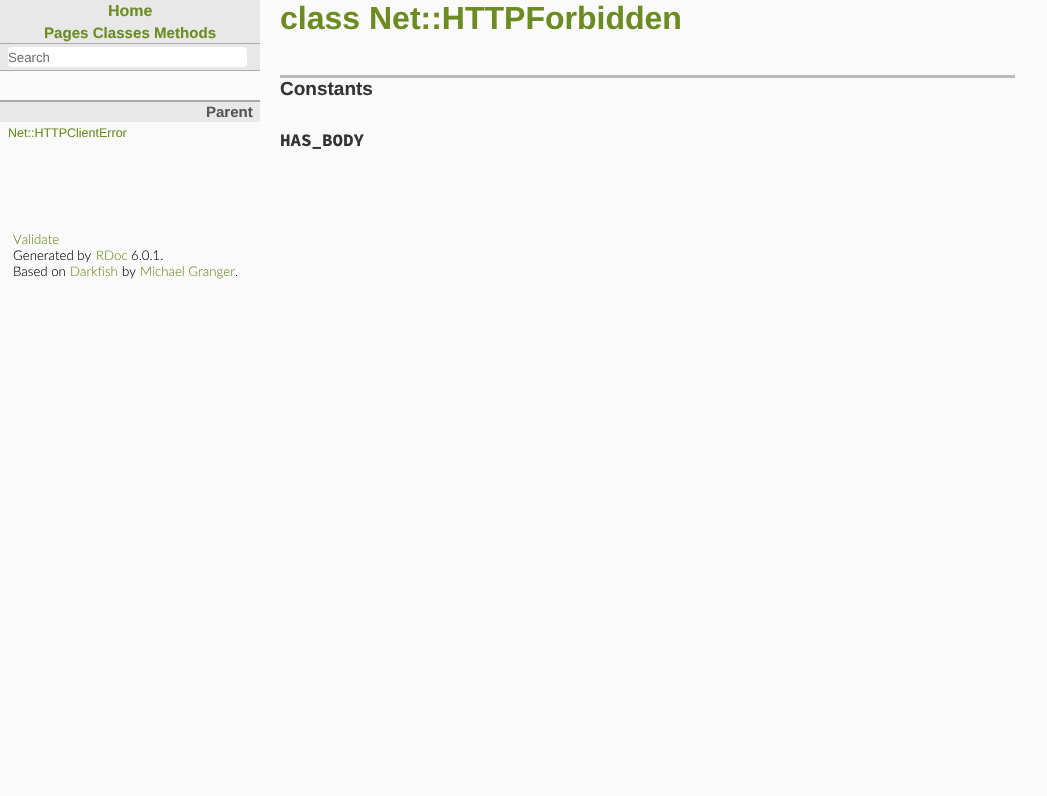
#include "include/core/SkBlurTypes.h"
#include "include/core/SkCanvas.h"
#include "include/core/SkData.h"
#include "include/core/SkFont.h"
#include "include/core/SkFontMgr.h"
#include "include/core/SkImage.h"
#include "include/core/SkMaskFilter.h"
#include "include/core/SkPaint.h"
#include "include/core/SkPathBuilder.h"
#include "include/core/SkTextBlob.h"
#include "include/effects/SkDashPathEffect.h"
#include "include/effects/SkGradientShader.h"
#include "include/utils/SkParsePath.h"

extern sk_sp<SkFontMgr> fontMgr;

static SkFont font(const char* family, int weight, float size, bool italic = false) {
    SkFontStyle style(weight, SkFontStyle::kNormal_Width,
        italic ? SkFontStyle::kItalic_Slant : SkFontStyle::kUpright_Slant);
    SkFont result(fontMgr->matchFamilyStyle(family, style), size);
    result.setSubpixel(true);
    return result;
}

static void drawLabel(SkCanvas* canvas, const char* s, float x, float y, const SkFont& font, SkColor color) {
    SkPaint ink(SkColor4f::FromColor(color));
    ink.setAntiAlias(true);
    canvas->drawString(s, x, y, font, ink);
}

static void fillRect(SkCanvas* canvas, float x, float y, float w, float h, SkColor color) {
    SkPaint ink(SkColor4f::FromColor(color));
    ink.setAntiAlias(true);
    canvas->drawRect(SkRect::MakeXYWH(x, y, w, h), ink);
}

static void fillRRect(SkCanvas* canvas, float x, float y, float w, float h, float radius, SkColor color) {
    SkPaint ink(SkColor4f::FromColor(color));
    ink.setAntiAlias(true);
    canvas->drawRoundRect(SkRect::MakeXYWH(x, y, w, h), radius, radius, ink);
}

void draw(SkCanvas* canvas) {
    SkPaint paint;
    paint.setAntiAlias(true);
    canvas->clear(0xFFFAFAFA);
    fillRect(canvas, 0, 0, 260, 43, 0xFFE8E8E8);
    SkFont font1 = font("Liberation Sans", 700, 16);
    drawLabel(canvas, "Home", 108, 16, font1, 0xFF6C8C22);
    SkFont font2 = font("Liberation Sans", 700, 15.1f);
    drawLabel(canvas, "Pages Classes Methods", 44, 38, font2, 0xFF6C8C22);
    fillRect(canvas, 0, 44, 260, 26, 0xFFE8E8E8);
    fillRect(canvas, 0, 43, 260, 1, 0xFFAAAAAA);
    fillRect(canvas, 0, 70, 260, 1, 0xFFAAAAAA);
    fillRRect(canvas, 8, 47, 239, 20, 4, 0xFFFFFFFF);
    SkFont font3 = font("Liberation Sans", 400, 13.25f);
    drawLabel(canvas, "Search", 8, 62, font3, 0xFF757575);
    fillRect(canvas, 0, 100, 260, 2, 0xFFAAAAAA);
    fillRect(canvas, 0, 102, 260, 20, 0xFFE8E8E8);
    SkFont font4 = font("Liberation Sans", 700, 15);
    drawLabel(canvas, "Parent", 206, 117, font4, 0xFF555555);
    SkFont font5 = font("Liberation Sans", 400, 12.5f);
    drawLabel(canvas, "Net::HTTPClientError", 8, 137, font5, 0xFF6C8C22);
    SkFont font6 = font("Liberation Sans", 700, 32);
    drawLabel(canvas, "class Net::HTTPForbidden", 280, 29, font6, 0xFF6C8C22);
    fillRect(canvas, 280, 75, 735, 3, 0xFFBBBBBB);
    SkFont font7 = font("Liberation Sans", 700, 19);
    drawLabel(canvas, "Constants", 280, 95, font7, 0xFF333333);
    SkFont font8 = font("Source Code Pro", 700, 17.5f);
    drawLabel(canvas, "HAS_BODY", 280, 146, font8, 0xFF333333);
    SkFont font9 = font("Lato", 300, 13.25f);
    drawLabel(canvas, "Validate", 13, 244, font9, 0xFF6C8C22);
    drawLabel(canvas, "Generated by", 13, 260, font9, 0xFF000000);
    drawLabel(canvas, "RDoc", 96, 260, font9, 0xFF6C8C22);
    drawLabel(canvas, "6.0.1.", 131, 260, font9, 0xFF000000);
    drawLabel(canvas, "Based on", 13, 276, font9, 0xFF000000);
    drawLabel(canvas, "Darkfish", 70, 276, font9, 0xFF6C8C22);
    drawLabel(canvas, "by", 122, 276, font9, 0xFF000000);
    drawLabel(canvas, "Michael Granger", 140, 276, font9, 0xFF6C8C22);
    drawLabel(canvas, ".", 235, 276, font9, 0xFF000000);
}
